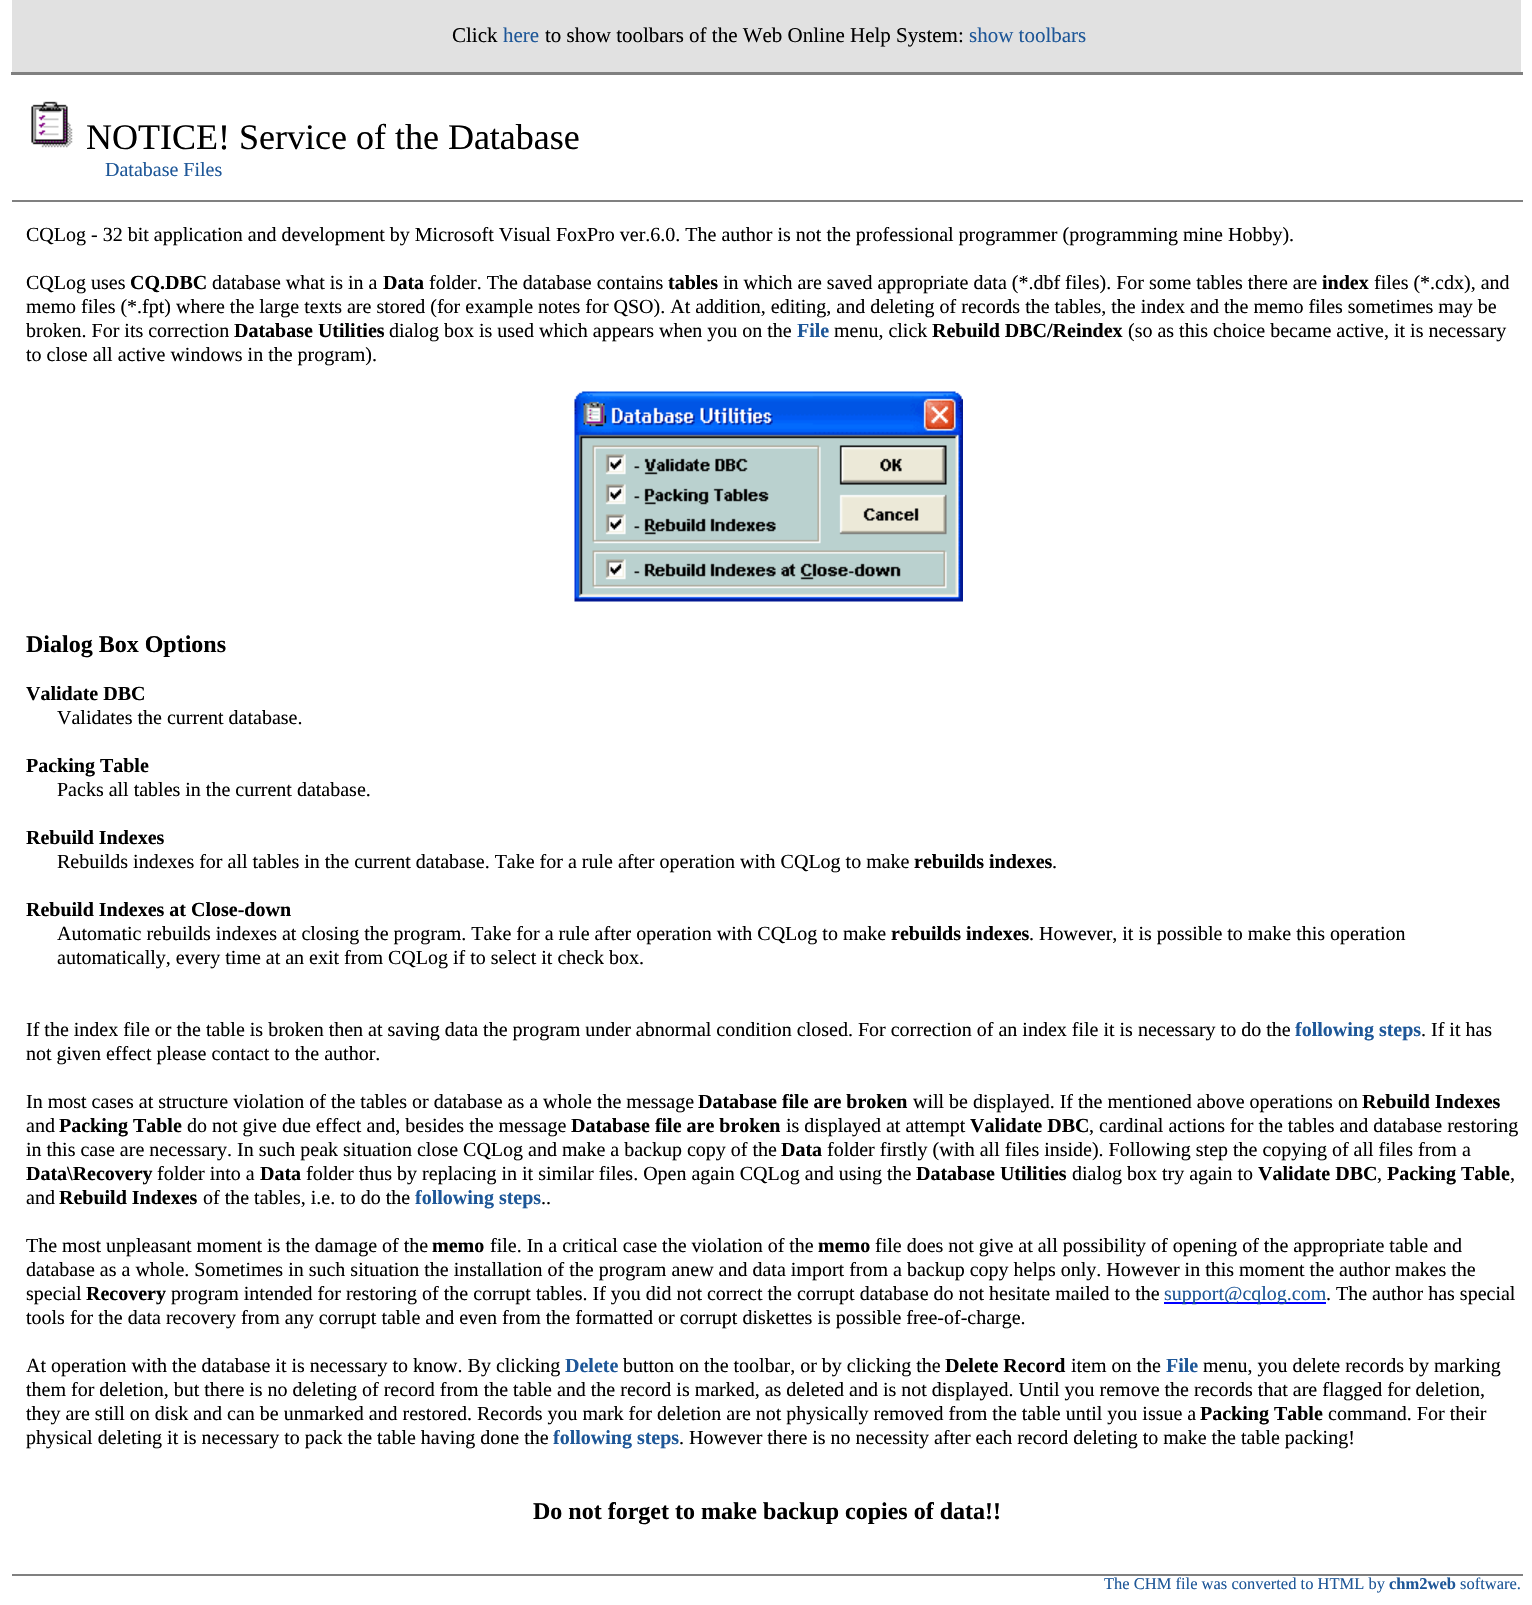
#include "include/core/SkBlurTypes.h"
#include "include/core/SkCanvas.h"
#include "include/core/SkData.h"
#include "include/core/SkFont.h"
#include "include/core/SkFontMgr.h"
#include "include/core/SkImage.h"
#include "include/core/SkMaskFilter.h"
#include "include/core/SkPaint.h"
#include "include/core/SkPathBuilder.h"
#include "include/core/SkTextBlob.h"
#include "include/effects/SkDashPathEffect.h"
#include "include/effects/SkGradientShader.h"
#include "include/utils/SkParsePath.h"

extern sk_sp<SkFontMgr> fontMgr;

static SkFont font(const char* family, int weight, float size, bool italic = false) {
    SkFontStyle style(weight, SkFontStyle::kNormal_Width,
        italic ? SkFontStyle::kItalic_Slant : SkFontStyle::kUpright_Slant);
    SkFont result(fontMgr->matchFamilyStyle(family, style), size);
    result.setSubpixel(true);
    return result;
}

static void drawLabel(SkCanvas* canvas, const char* s, float x, float y, const SkFont& font, SkColor color) {
    SkPaint ink(SkColor4f::FromColor(color));
    ink.setAntiAlias(true);
    canvas->drawString(s, x, y, font, ink);
}

static void fillRect(SkCanvas* canvas, float x, float y, float w, float h, SkColor color) {
    SkPaint ink(SkColor4f::FromColor(color));
    ink.setAntiAlias(true);
    canvas->drawRect(SkRect::MakeXYWH(x, y, w, h), ink);
}

static void drawPhoto(SkCanvas* canvas, const char* path, float x, float y, float w, float h) {
    auto image = SkImages::DeferredFromEncodedData(SkData::MakeFromFileName(path));
    canvas->drawImageRect(image, SkRect::MakeXYWH(x, y, w, h), SkSamplingOptions());
}

void draw(SkCanvas* canvas) {
    SkPaint paint;
    paint.setAntiAlias(true);
    canvas->clear(0xFFFFFFFF);
    fillRect(canvas, 12, 0, 1509, 72, 0xFFE1E1E1);
    fillRect(canvas, 11, 72, 1512, 3, 0xFF808080);
    SkFont font1 = font("Liberation Serif", 400, 21);
    drawLabel(canvas, "Click", 452, 42, font1, 0xFF000000);
    drawLabel(canvas, "here", 503, 42, font1, 0xFF1E5798);
    drawLabel(canvas, "to show toolbars of the Web Online Help System:", 545, 42, font1, 0xFF000000);
    drawLabel(canvas, "show toolbars", 969, 42, font1, 0xFF1E5798);
    drawPhoto(canvas, "assets/img1.png", 31, 101, 42, 47);
    SkFont font2 = font("Liberation Serif", 400, 36);
    drawLabel(canvas, "NOTICE! Service of the Database", 86, 149, font2, 0xFF000000);
    SkFont font3 = font("Liberation Serif", 400, 20);
    drawLabel(canvas, "Database Files", 105, 176, font3, 0xFF1E5798);
    fillRect(canvas, 12, 200, 1511, 2, 0xFF808080);
    drawLabel(canvas, "CQLog - 32 bit application and development by Microsoft Visual FoxPro ver.6.0. The author is not the professional programmer (programming mine Hobby).", 26, 241, font3, 0xFF000000);
    drawLabel(canvas, "CQLog uses", 26, 289, font3, 0xFF000000);
    SkFont font4 = font("Liberation Serif", 700, 20);
    drawLabel(canvas, "CQ.DBC", 130, 289, font4, 0xFF000000);
    drawLabel(canvas, "database what is in a", 212, 289, font3, 0xFF000000);
    drawLabel(canvas, "Data", 383, 289, font4, 0xFF000000);
    drawLabel(canvas, "folder. The database contains", 429, 289, font3, 0xFF000000);
    drawLabel(canvas, "tables", 668, 289, font4, 0xFF000000);
    drawLabel(canvas, "in which are saved appropriate data (*.dbf files). For some tables there are", 723, 289, font3, 0xFF000000);
    drawLabel(canvas, "index", 1322, 289, font4, 0xFF000000);
    drawLabel(canvas, "files (*.cdx), and", 1374, 289, font3, 0xFF000000);
    drawLabel(canvas, "memo files (*.fpt) where the large texts are stored (for example notes for QSO). At addition, editing, and deleting of records the tables, the index and the memo files sometimes may be", 26, 313, font3, 0xFF000000);
    drawLabel(canvas, "broken. For its correction", 26, 337, font3, 0xFF000000);
    drawLabel(canvas, "Database Utilities", 234, 337, font4, 0xFF000000);
    drawLabel(canvas, "dialog box is used which appears when you on the", 389, 337, font3, 0xFF000000);
    drawLabel(canvas, "File", 797, 337, font4, 0xFF1E5798);
    drawLabel(canvas, "menu, click", 834, 337, font3, 0xFF000000);
    drawLabel(canvas, "Rebuild DBC/Reindex", 932, 337, font4, 0xFF000000);
    drawLabel(canvas, "(so as this choice became active, it is necessary", 1128, 337, font3, 0xFF000000);
    drawLabel(canvas, "to close all active windows in the program).", 26, 361, font3, 0xFF000000);
    drawPhoto(canvas, "assets/img2.png", 574, 391, 389, 211);
    SkFont font5 = font("Liberation Serif", 700, 24);
    drawLabel(canvas, "Dialog Box Options", 26, 652, font5, 0xFF000000);
    drawLabel(canvas, "Validate DBC", 26, 700, font4, 0xFF000000);
    drawLabel(canvas, "Validates the current database.", 57, 724, font3, 0xFF000000);
    drawLabel(canvas, "Packing Table", 26, 772, font4, 0xFF000000);
    drawLabel(canvas, "Packs all tables in the current database.", 57, 796, font3, 0xFF000000);
    drawLabel(canvas, "Rebuild Indexes", 26, 844, font4, 0xFF000000);
    drawLabel(canvas, "Rebuilds indexes for all tables in the current database. Take for a rule after operation with CQLog to make", 57, 868, font3, 0xFF000000);
    drawLabel(canvas, "rebuilds indexes", 914, 868, font4, 0xFF000000);
    drawLabel(canvas, ".", 1052, 868, font3, 0xFF000000);
    drawLabel(canvas, "Rebuild Indexes at Close-down", 26, 916, font4, 0xFF000000);
    drawLabel(canvas, "Automatic rebuilds indexes at closing the program. Take for a rule after operation with CQLog to make", 57, 940, font3, 0xFF000000);
    drawLabel(canvas, "rebuilds indexes", 891, 940, font4, 0xFF000000);
    drawLabel(canvas, ". However, it is possible to make this operation", 1029, 940, font3, 0xFF000000);
    drawLabel(canvas, "automatically, every time at an exit from CQLog if to select it check box.", 57, 964, font3, 0xFF000000);
    drawLabel(canvas, "If the index file or the table is broken then at saving data the program under abnormal condition closed. For correction of an index file it is necessary to do the", 26, 1036, font3, 0xFF000000);
    drawLabel(canvas, "following steps", 1295, 1036, font4, 0xFF1E5798);
    drawLabel(canvas, ". If it has", 1421, 1036, font3, 0xFF000000);
    drawLabel(canvas, "not given effect please contact to the author.", 26, 1060, font3, 0xFF000000);
    drawLabel(canvas, "In most cases at structure violation of the tables or database as a whole the message", 26, 1108, font3, 0xFF000000);
    drawLabel(canvas, "Database file are broken", 698, 1108, font4, 0xFF000000);
    drawLabel(canvas, "will be displayed. If the mentioned above operations on", 913, 1108, font3, 0xFF000000);
    drawLabel(canvas, "Rebuild Indexes", 1362, 1108, font4, 0xFF000000);
    drawLabel(canvas, "and", 26, 1132, font3, 0xFF000000);
    drawLabel(canvas, "Packing Table", 59, 1132, font4, 0xFF000000);
    drawLabel(canvas, "do not give due effect and, besides the message", 187, 1132, font3, 0xFF000000);
    drawLabel(canvas, "Database file are broken", 571, 1132, font4, 0xFF000000);
    drawLabel(canvas, "is displayed at attempt", 786, 1132, font3, 0xFF000000);
    drawLabel(canvas, "Validate DBC", 970, 1132, font4, 0xFF000000);
    drawLabel(canvas, ", cardinal actions for the tables and database restoring", 1089, 1132, font3, 0xFF000000);
    drawLabel(canvas, "in this case are necessary. In such peak situation close CQLog and make a backup copy of the", 26, 1156, font3, 0xFF000000);
    drawLabel(canvas, "Data", 781, 1156, font4, 0xFF000000);
    drawLabel(canvas, "folder firstly (with all files inside). Following step the copying of all files from a", 827, 1156, font3, 0xFF000000);
    drawLabel(canvas, "Data\\Recovery", 26, 1180, font4, 0xFF000000);
    drawLabel(canvas, "folder into a", 157, 1180, font3, 0xFF000000);
    drawLabel(canvas, "Data", 260, 1180, font4, 0xFF000000);
    drawLabel(canvas, "folder thus by replacing in it similar files. Open again CQLog and using the", 306, 1180, font3, 0xFF000000);
    drawLabel(canvas, "Database Utilities", 916, 1180, font4, 0xFF000000);
    drawLabel(canvas, "dialog box try again to", 1072, 1180, font3, 0xFF000000);
    drawLabel(canvas, "Validate DBC", 1258, 1180, font4, 0xFF000000);
    drawLabel(canvas, ",", 1377, 1180, font3, 0xFF000000);
    drawLabel(canvas, "Packing Table", 1387, 1180, font4, 0xFF000000);
    drawLabel(canvas, ",", 1510, 1180, font3, 0xFF000000);
    drawLabel(canvas, "and", 26, 1204, font3, 0xFF000000);
    drawLabel(canvas, "Rebuild Indexes", 59, 1204, font4, 0xFF000000);
    drawLabel(canvas, "of the tables, i.e. to do the", 203, 1204, font3, 0xFF000000);
    drawLabel(canvas, "following steps", 415, 1204, font4, 0xFF1E5798);
    drawLabel(canvas, "..", 541, 1204, font3, 0xFF000000);
    drawLabel(canvas, "The most unpleasant moment is the damage of the", 26, 1252, font3, 0xFF000000);
    drawLabel(canvas, "memo", 432, 1252, font4, 0xFF000000);
    drawLabel(canvas, "file. In a critical case the violation of the", 490, 1252, font3, 0xFF000000);
    drawLabel(canvas, "memo", 818, 1252, font4, 0xFF000000);
    drawLabel(canvas, "file does not give at all possibility of opening of the appropriate table and", 875, 1252, font3, 0xFF000000);
    drawLabel(canvas, "database as a whole. Sometimes in such situation the installation of the program anew and data import from a backup copy helps only. However in this moment the author makes the", 26, 1276, font3, 0xFF000000);
    drawLabel(canvas, "special", 26, 1300, font3, 0xFF000000);
    drawLabel(canvas, "Recovery", 86, 1300, font4, 0xFF000000);
    drawLabel(canvas, "program intended for restoring of the corrupt tables. If you did not correct the corrupt database do not hesitate mailed to the", 171, 1300, font3, 0xFF000000);
    fillRect(canvas, 1164, 1302, 162, 2, 0xFF0000FF);
    drawLabel(canvas, "support@cqlog.com", 1164, 1300, font3, 0xFF1E5798);
    drawLabel(canvas, ". The author has special", 1326, 1300, font3, 0xFF000000);
    drawLabel(canvas, "tools for the data recovery from any corrupt table and even from the formatted or corrupt diskettes is possible free-of-charge.", 26, 1324, font3, 0xFF000000);
    drawLabel(canvas, "At operation with the database it is necessary to know. By clicking", 26, 1372, font3, 0xFF000000);
    drawLabel(canvas, "Delete", 565, 1372, font4, 0xFF1E5798);
    drawLabel(canvas, "button on the toolbar, or by clicking the", 623, 1372, font3, 0xFF000000);
    drawLabel(canvas, "Delete Record", 945, 1372, font4, 0xFF000000);
    drawLabel(canvas, "item on the", 1071, 1372, font3, 0xFF000000);
    drawLabel(canvas, "File", 1166, 1372, font4, 0xFF1E5798);
    drawLabel(canvas, "menu, you delete records by marking", 1203, 1372, font3, 0xFF000000);
    drawLabel(canvas, "them for deletion, but there is no deleting of record from the table and the record is marked, as deleted and is not displayed. Until you remove the records that are flagged for deletion,", 26, 1396, font3, 0xFF000000);
    drawLabel(canvas, "they are still on disk and can be unmarked and restored. Records you mark for deletion are not physically removed from the table until you issue a", 26, 1420, font3, 0xFF000000);
    drawLabel(canvas, "Packing Table", 1200, 1420, font4, 0xFF000000);
    drawLabel(canvas, "command. For their", 1328, 1420, font3, 0xFF000000);
    drawLabel(canvas, "physical deleting it is necessary to pack the table having done the", 26, 1444, font3, 0xFF000000);
    drawLabel(canvas, "following steps", 553, 1444, font4, 0xFF1E5798);
    drawLabel(canvas, ". However there is no necessity after each record deleting to make the table packing!", 679, 1444, font3, 0xFF000000);
    drawLabel(canvas, "Do not forget to make backup copies of data!!", 533, 1519, font5, 0xFF000000);
    fillRect(canvas, 12, 1574, 1511, 2, 0xFF808080);
    SkFont font6 = font("Liberation Serif", 400, 16.5f);
    drawLabel(canvas, "The CHM file was converted to HTML by", 1104, 1589, font6, 0xFF1E5798);
    SkFont font7 = font("Liberation Serif", 700, 16.5f);
    drawLabel(canvas, "chm2web", 1389, 1589, font7, 0xFF1E5798);
    drawLabel(canvas, "software.", 1460, 1589, font6, 0xFF1E5798);
}
